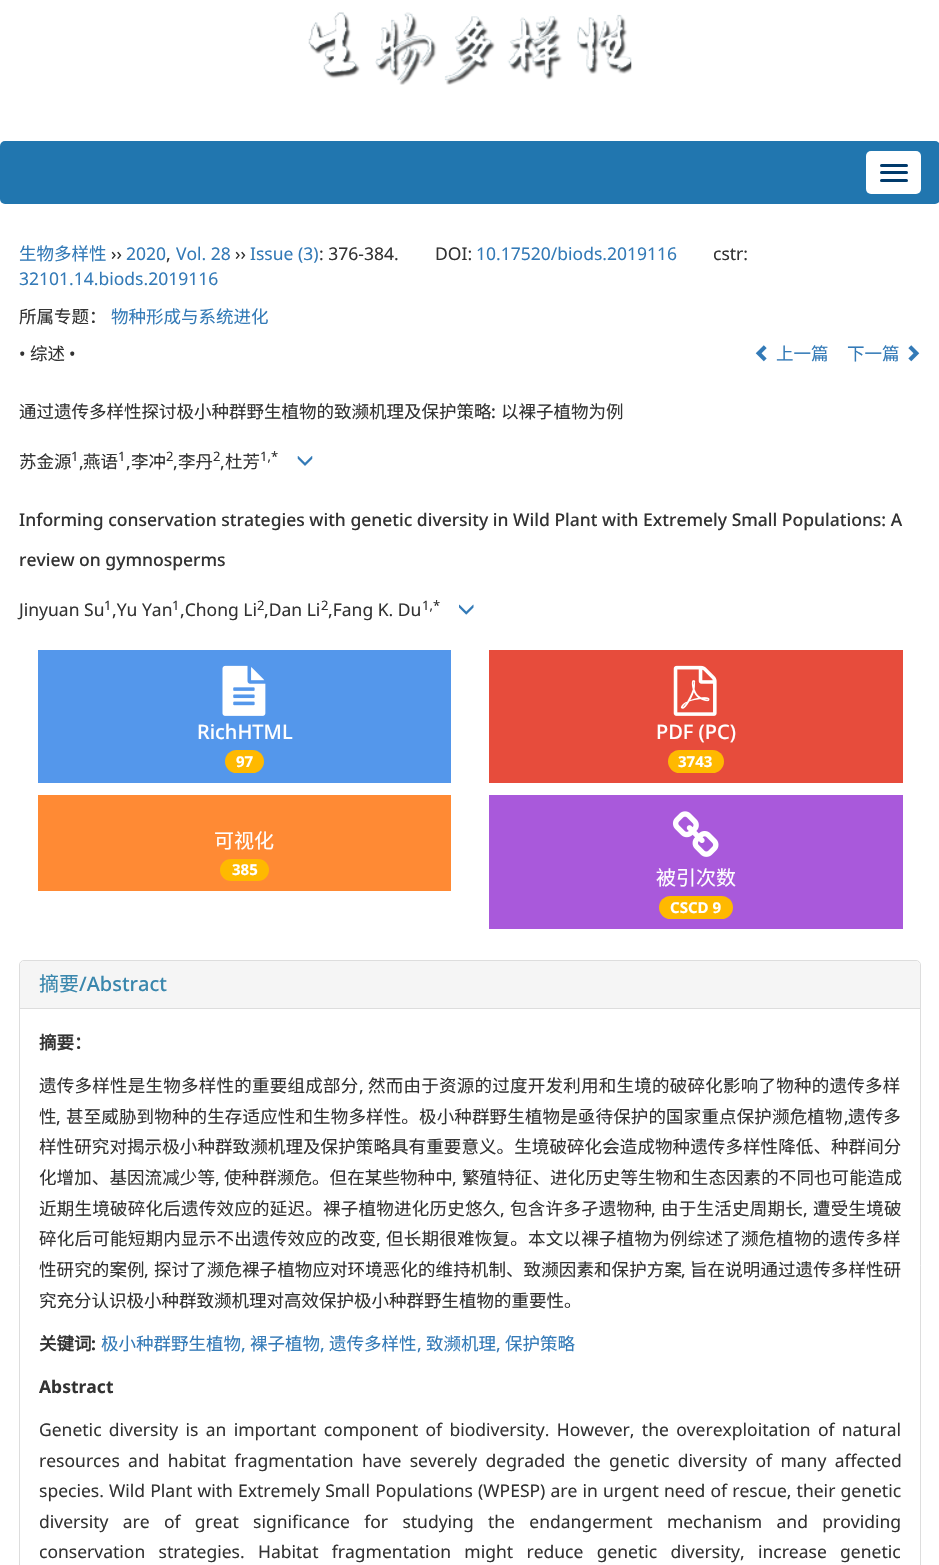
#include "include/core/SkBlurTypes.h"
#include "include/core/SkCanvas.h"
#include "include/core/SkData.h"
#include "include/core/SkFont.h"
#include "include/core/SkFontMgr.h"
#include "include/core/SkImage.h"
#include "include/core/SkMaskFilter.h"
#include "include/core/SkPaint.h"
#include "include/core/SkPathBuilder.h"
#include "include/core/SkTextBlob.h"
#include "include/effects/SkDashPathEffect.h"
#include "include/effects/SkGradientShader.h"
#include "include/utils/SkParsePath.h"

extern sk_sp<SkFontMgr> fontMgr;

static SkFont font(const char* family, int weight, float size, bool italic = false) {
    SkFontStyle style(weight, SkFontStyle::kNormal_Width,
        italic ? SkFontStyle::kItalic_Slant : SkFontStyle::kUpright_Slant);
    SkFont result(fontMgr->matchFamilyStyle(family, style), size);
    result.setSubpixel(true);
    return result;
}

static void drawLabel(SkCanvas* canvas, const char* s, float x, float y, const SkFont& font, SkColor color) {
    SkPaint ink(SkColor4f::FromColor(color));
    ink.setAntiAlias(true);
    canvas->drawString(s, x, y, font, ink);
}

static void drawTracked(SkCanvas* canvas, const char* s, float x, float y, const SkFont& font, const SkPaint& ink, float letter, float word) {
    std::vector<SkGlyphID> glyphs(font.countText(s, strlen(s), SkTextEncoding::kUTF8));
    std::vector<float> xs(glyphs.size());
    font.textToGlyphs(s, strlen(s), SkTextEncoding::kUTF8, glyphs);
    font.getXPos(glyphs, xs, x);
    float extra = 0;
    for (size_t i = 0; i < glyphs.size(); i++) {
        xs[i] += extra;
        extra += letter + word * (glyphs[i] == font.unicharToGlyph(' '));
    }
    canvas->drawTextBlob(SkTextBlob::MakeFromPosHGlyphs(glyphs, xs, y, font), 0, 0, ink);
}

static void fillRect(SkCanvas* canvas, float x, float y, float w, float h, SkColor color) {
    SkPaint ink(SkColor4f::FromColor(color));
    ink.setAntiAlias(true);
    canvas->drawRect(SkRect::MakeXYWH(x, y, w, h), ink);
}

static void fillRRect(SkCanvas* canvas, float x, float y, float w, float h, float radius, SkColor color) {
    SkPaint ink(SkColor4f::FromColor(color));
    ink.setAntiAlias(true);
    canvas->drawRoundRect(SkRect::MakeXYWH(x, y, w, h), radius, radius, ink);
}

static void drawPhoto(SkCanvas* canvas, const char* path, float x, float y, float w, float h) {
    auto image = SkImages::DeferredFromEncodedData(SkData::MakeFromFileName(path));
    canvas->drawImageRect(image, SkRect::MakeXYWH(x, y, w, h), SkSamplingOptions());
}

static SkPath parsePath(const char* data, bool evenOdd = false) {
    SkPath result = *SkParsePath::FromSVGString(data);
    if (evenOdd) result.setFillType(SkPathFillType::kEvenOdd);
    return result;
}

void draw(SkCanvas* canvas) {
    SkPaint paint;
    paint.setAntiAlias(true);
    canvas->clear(0xFFFFFFFF);
    drawPhoto(canvas, "assets/img1.png", 308, 12, 324, 73);
    fillRRect(canvas, 0, 141, 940, 63, 5, 0xFF2176AF);
    fillRRect(canvas, 866, 151, 55, 43, 5, 0xFFFFFFFF);
    fillRRect(canvas, 880, 164, 28, 3, 1.5f, 0xFF003A6B);
    fillRRect(canvas, 880, 171, 28, 3, 1.5f, 0xFF003A6B);
    fillRRect(canvas, 880, 179, 28, 3, 1.5f, 0xFF003A6B);
    SkFont font1 = font("Noto Sans CJK SC", 400, 17.5f);
    drawLabel(canvas, "生物多样性", 19, 260, font1, 0xFF337AB7);
    SkFont font2 = font("Noto Sans", 400, 17.5f);
    drawLabel(canvas, "››", 111, 260, font2, 0xFF333333);
    drawLabel(canvas, "2020", 126, 260, font2, 0xFF337AB7);
    drawLabel(canvas, "Vol. 28", 176, 260, font2, 0xFF337AB7);
    drawLabel(canvas, "››", 235, 260, font2, 0xFF333333);
    drawLabel(canvas, "Issue (3)", 250, 260, font2, 0xFF337AB7);
    drawLabel(canvas, ": 376-384.", 319, 260, font2, 0xFF333333);
    drawLabel(canvas, "DOI:", 435, 260, font2, 0xFF333333);
    drawLabel(canvas, "10.17520/biods.2019116", 476, 260, font2, 0xFF337AB7);
    drawLabel(canvas, "cstr:", 713, 260, font2, 0xFF333333);
    drawLabel(canvas, ",", 166, 260, font2, 0xFF333333);
    drawLabel(canvas, "32101.14.biods.2019116", 19, 285, font2, 0xFF337AB7);
    drawLabel(canvas, "所属专题：", 19, 323, font1, 0xFF333333);
    drawLabel(canvas, "物种形成与系统进化", 111, 323, font1, 0xFF337AB7);
    drawLabel(canvas, "•", 19, 360, font2, 0xFF333333);
    drawLabel(canvas, "综述", 30, 360, font1, 0xFF333333);
    drawLabel(canvas, "•", 69, 360, font2, 0xFF333333);
    drawPhoto(canvas, "assets/img2.png", 755, 345, 12, 17);
    drawLabel(canvas, "上一篇", 776, 360, font1, 0xFF337AB7);
    drawLabel(canvas, "下一篇", 847, 360, font1, 0xFF337AB7);
    drawPhoto(canvas, "assets/img3.png", 908, 345, 12, 17);
    drawLabel(canvas, "通过遗传多样性探讨极小种群野生植物的致濒机理及保护策略", 19, 418, font1, 0xFF333333);
    SkFont font3 = font("Noto Sans", 500, 17.5f);
    drawLabel(canvas, ":", 491, 418, font3, 0xFF333333);
    drawLabel(canvas, "以裸子植物为例", 501, 418, font1, 0xFF333333);
    drawLabel(canvas, "苏金源", 19, 468, font1, 0xFF333333);
    SkFont font4 = font("Noto Sans", 400, 13);
    drawLabel(canvas, "1", 71, 461, font4, 0xFF333333);
    drawLabel(canvas, "燕语", 83, 468, font1, 0xFF333333);
    drawLabel(canvas, "1", 118, 461, font4, 0xFF333333);
    drawLabel(canvas, "李冲", 131, 468, font1, 0xFF333333);
    drawLabel(canvas, "2", 166, 461, font4, 0xFF333333);
    drawLabel(canvas, "李丹", 178, 468, font1, 0xFF333333);
    drawLabel(canvas, "2", 213, 461, font4, 0xFF333333);
    drawLabel(canvas, "杜芳", 225, 468, font1, 0xFF333333);
    drawLabel(canvas, "1,*", 260, 461, font4, 0xFF333333);
    drawPhoto(canvas, "assets/img4.png", 297, 456, 16, 10);
    drawLabel(canvas, ",", 79, 468, font2, 0xFF333333);
    drawLabel(canvas, ",", 126, 468, font2, 0xFF333333);
    drawLabel(canvas, ",", 173, 468, font2, 0xFF333333);
    drawLabel(canvas, ",", 220, 468, font2, 0xFF333333);
    drawLabel(canvas, "Informing conservation strategies with genetic diversity in Wild Plant with Extremely Small Populations: A", 19, 526, font3, 0xFF333333);
    drawLabel(canvas, "review on gymnosperms", 19, 566, font3, 0xFF333333);
    drawLabel(canvas, "Jinyuan Su", 19, 616, font2, 0xFF333333);
    drawLabel(canvas, "1", 104, 610, font4, 0xFF333333);
    drawLabel(canvas, ",Yu Yan", 112, 616, font2, 0xFF333333);
    drawLabel(canvas, "1", 172, 610, font4, 0xFF333333);
    drawLabel(canvas, ",Chong Li", 180, 616, font2, 0xFF333333);
    drawLabel(canvas, "2", 257, 610, font4, 0xFF333333);
    drawLabel(canvas, ",Dan Li", 264, 616, font2, 0xFF333333);
    drawLabel(canvas, "2", 321, 610, font4, 0xFF333333);
    drawLabel(canvas, ",Fang K. Du", 328, 616, font2, 0xFF333333);
    drawLabel(canvas, "1,*", 422, 610, font4, 0xFF333333);
    drawPhoto(canvas, "assets/img5.png", 459, 604, 15, 11);
    fillRect(canvas, 38, 650, 413, 133, 0xFF5497EB);
    drawPhoto(canvas, "assets/img6.png", 222, 665, 44, 51);
    SkFont font5 = font("Noto Sans", 500, 20);
    drawLabel(canvas, "RichHTML", 197, 739, font5, 0xFFFFFFFF);
    fillRRect(canvas, 225, 750, 39, 23, 11.5f, 0xFFFFB900);
    SkFont font6 = font("Noto Sans", 700, 15);
    drawLabel(canvas, "97", 236, 767, font6, 0xFFFFFFFF);
    fillRect(canvas, 489, 650, 414, 133, 0xFFE74C3C);
    drawPhoto(canvas, "assets/img7.png", 673, 665, 44, 51);
    drawLabel(canvas, "PDF (PC)", 656, 739, font5, 0xFFFFFFFF);
    fillRRect(canvas, 668, 750, 56, 23, 11.5f, 0xFFFFB900);
    drawLabel(canvas, "3743", 678, 767, font6, 0xFFFFFFFF);
    fillRect(canvas, 38, 795, 413, 96, 0xFFFF8A34);
    SkFont font7 = font("Noto Sans CJK SC", 400, 20);
    drawLabel(canvas, "可视化", 214, 848, font7, 0xFFFFFFFF);
    fillRRect(canvas, 220, 859, 49, 22, 11, 0xFFFFB900);
    drawLabel(canvas, "385", 232, 875, font6, 0xFFFFFFFF);
    fillRect(canvas, 489, 795, 414, 134, 0xFFA959DB);
    drawPhoto(canvas, "assets/img8.png", 672, 811, 47, 46);
    drawLabel(canvas, "被引次数", 656, 885, font7, 0xFFFFFFFF);
    fillRRect(canvas, 659, 896, 74, 23, 11.5f, 0xFFFFB900);
    drawLabel(canvas, "CSCD 9", 670, 913, font6, 0xFFFFFFFF);
    paint.setStroke(true);
    paint.setStrokeWidth(1);
    paint.setColor(0xFFDDDDDD);
    canvas->drawRoundRect(SkRect::MakeXYWH(19.5f, 960.5f, 901, 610), 4.5f, 4.5f, paint);
    paint.setStroke(false);
    paint.setColor(0xFFF5F5F5);
    canvas->drawPath(parsePath("M24 961H916C918 961 920 963 920 965V1008H20V965C20 963 22 961 24 961Z"), paint);
    drawLabel(canvas, "摘要", 39, 991, font7, 0xFF3A87AD);
    drawLabel(canvas, "/Abstract", 79, 991, font5, 0xFF3A87AD);
    fillRect(canvas, 20, 1008, 900, 1, 0xFFDDDDDD);
    SkFont font8 = font("Noto Sans CJK SC", 700, 17.5f);
    drawLabel(canvas, "摘要：", 39, 1049, font8, 0xFF333333);
    paint.setColor(0xFF333333);
    drawTracked(canvas, "遗传多样性是生物多样性的重要组成部分", 39, 1092, font1, paint, 0.25f, 0);
    drawTracked(canvas, ",", 359, 1092, font2, paint, 0.25f, 0);
    drawTracked(canvas, "然而由于资源的过度开发利用和生境的破碎化影响了物种的遗传多样", 368, 1092, font1, paint, 0.25f, 0);
    drawTracked(canvas, "性", 39, 1123, font1, paint, 0.15f, 0);
    drawTracked(canvas, ",", 56, 1123, font2, paint, 0.15f, 0);
    drawTracked(canvas, "甚至威胁到物种的生存适应性和生物多样性。极小种群野生植物是亟待保护的国家重点保护濒危植物", 66, 1123, font1, paint, 0.15f, 0);
    drawTracked(canvas, ",", 844, 1123, font2, paint, 0.15f, 0);
    drawTracked(canvas, "遗传多", 848, 1123, font1, paint, 0.15f, 0);
    drawTracked(canvas, "样性研究对揭示极小种群致濒机理及保护策略具有重要意义。生境破碎化会造成物种遗传多样性降低、种群间分", 39, 1153, font1, paint, 0.1f, 0);
    drawTracked(canvas, "化增加、基因流减少等", 39, 1184, font1, paint, 0.1f, 0);
    drawTracked(canvas, ",", 215, 1184, font2, paint, 0.1f, 0);
    drawTracked(canvas, "使种群濒危。但在某些物种中", 224, 1184, font1, paint, 0.1f, 0);
    drawTracked(canvas, ",", 452, 1184, font2, paint, 0.1f, 0);
    drawTracked(canvas, "繁殖特征、进化历史等生物和生态因素的不同也可能造成", 462, 1184, font1, paint, 0.1f, 0);
    drawTracked(canvas, "近期生境破碎化后遗传效应的延迟。裸子植物进化历史悠久", 39, 1215, font1, paint, 0.25f, 0);
    drawTracked(canvas, ",", 500, 1215, font2, paint, 0.25f, 0);
    drawTracked(canvas, "包含许多孑遗物种", 510, 1215, font1, paint, 0.25f, 0);
    drawTracked(canvas, ",", 651, 1215, font2, paint, 0.25f, 0);
    drawTracked(canvas, "由于生活史周期长", 661, 1215, font1, paint, 0.25f, 0);
    drawTracked(canvas, ",", 803, 1215, font2, paint, 0.25f, 0);
    drawTracked(canvas, "遭受生境破", 813, 1215, font1, paint, 0.25f, 0);
    drawTracked(canvas, "碎化后可能短期内显示不出遗传效应的改变", 39, 1245, font1, paint, 0.25f, 0);
    drawTracked(canvas, ",", 376, 1245, font2, paint, 0.25f, 0);
    drawTracked(canvas, "但长期很难恢复。本文以裸子植物为例综述了濒危植物的遗传多样", 386, 1245, font1, paint, 0.25f, 0);
    drawTracked(canvas, "性研究的案例", 39, 1276, font1, paint, 0.1f, 0);
    drawTracked(canvas, ",", 144, 1276, font2, paint, 0.1f, 0);
    drawTracked(canvas, "探讨了濒危裸子植物应对环境恶化的维持机制、致濒因素和保护方案", 154, 1276, font1, paint, 0.1f, 0);
    drawTracked(canvas, ",", 681, 1276, font2, paint, 0.1f, 0);
    drawTracked(canvas, "旨在说明通过遗传多样性研", 690, 1276, font1, paint, 0.1f, 0);
    drawLabel(canvas, "究充分认识极小种群致濒机理对高效保护极小种群野生植物的重要性。", 39, 1307, font1, 0xFF333333);
    drawLabel(canvas, "关键词", 39, 1350, font8, 0xFF333333);
    SkFont font9 = font("Noto Sans", 700, 17.5f);
    drawLabel(canvas, ":", 91, 1350, font9, 0xFF333333);
    drawLabel(canvas, "极小种群野生植物", 101, 1350, font1, 0xFF337AB7);
    drawLabel(canvas, ",", 241, 1350, font2, 0xFF337AB7);
    drawLabel(canvas, "裸子植物", 250, 1350, font1, 0xFF337AB7);
    drawLabel(canvas, ",", 320, 1350, font2, 0xFF337AB7);
    drawLabel(canvas, "遗传多样性", 329, 1350, font1, 0xFF337AB7);
    drawLabel(canvas, ",", 417, 1350, font2, 0xFF337AB7);
    drawLabel(canvas, "致濒机理", 426, 1350, font1, 0xFF337AB7);
    drawLabel(canvas, ",", 496, 1350, font2, 0xFF337AB7);
    drawLabel(canvas, "保护策略", 505, 1350, font1, 0xFF337AB7);
    drawLabel(canvas, "Abstract", 39, 1393, font9, 0xFF333333);
    drawTracked(canvas, "Genetic diversity is an important component of biodiversity. However, the overexploitation of natural", 39, 1436, font2, paint, 0, 2.75f);
    drawTracked(canvas, "resources and habitat fragmentation have severely degraded the genetic diversity of many affected", 39, 1467, font2, paint, 0, 3.75f);
    drawTracked(canvas, "species. Wild Plant with Extremely Small Populations (WPESP) are in urgent need of rescue, their genetic", 39, 1497, font2, paint, 0, 0.6f);
    drawTracked(canvas, "diversity are of great significance for studying the endangerment mechanism and providing", 39, 1528, font2, paint, 0, 9.75f);
    drawTracked(canvas, "conservation strategies. Habitat fragmentation might reduce genetic diversity, increase genetic", 39, 1558, font2, paint, 0, 8.75f);
}
